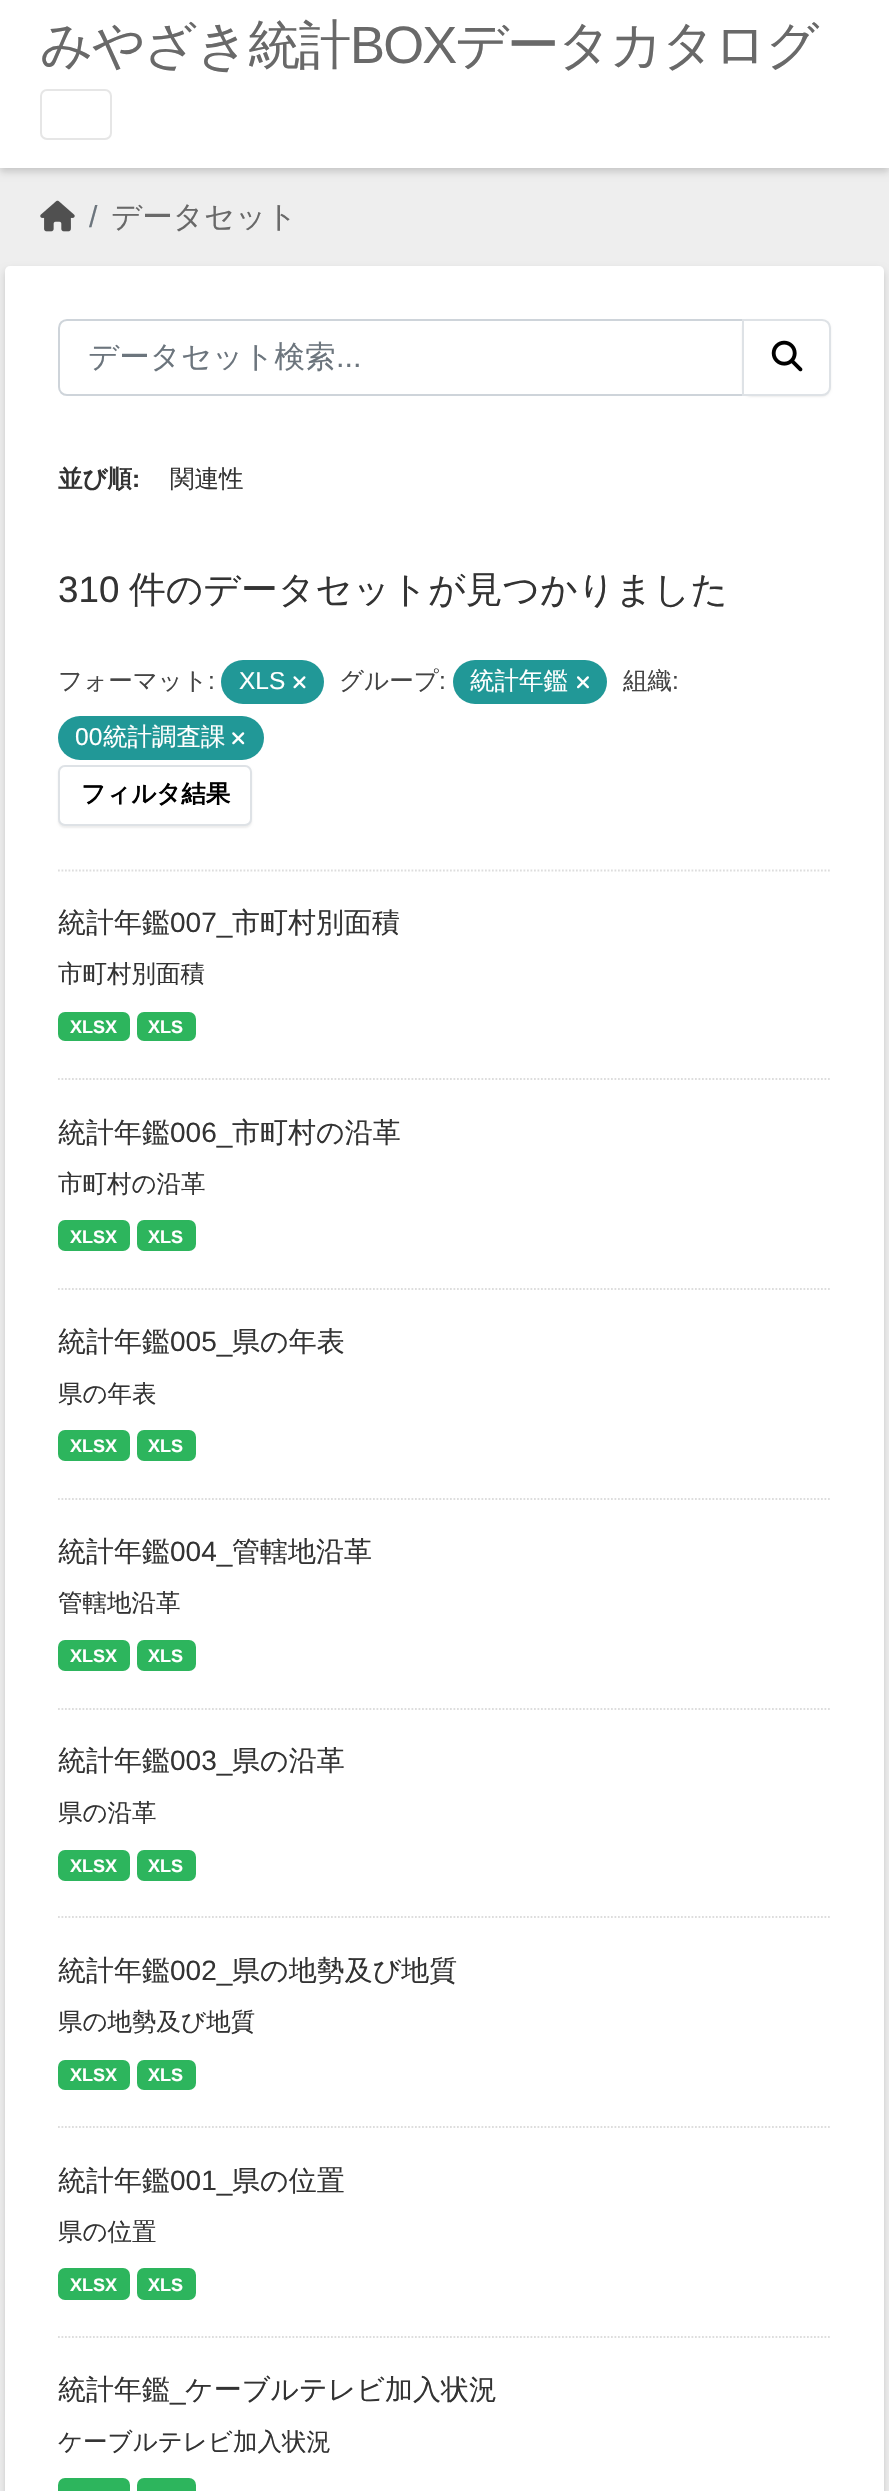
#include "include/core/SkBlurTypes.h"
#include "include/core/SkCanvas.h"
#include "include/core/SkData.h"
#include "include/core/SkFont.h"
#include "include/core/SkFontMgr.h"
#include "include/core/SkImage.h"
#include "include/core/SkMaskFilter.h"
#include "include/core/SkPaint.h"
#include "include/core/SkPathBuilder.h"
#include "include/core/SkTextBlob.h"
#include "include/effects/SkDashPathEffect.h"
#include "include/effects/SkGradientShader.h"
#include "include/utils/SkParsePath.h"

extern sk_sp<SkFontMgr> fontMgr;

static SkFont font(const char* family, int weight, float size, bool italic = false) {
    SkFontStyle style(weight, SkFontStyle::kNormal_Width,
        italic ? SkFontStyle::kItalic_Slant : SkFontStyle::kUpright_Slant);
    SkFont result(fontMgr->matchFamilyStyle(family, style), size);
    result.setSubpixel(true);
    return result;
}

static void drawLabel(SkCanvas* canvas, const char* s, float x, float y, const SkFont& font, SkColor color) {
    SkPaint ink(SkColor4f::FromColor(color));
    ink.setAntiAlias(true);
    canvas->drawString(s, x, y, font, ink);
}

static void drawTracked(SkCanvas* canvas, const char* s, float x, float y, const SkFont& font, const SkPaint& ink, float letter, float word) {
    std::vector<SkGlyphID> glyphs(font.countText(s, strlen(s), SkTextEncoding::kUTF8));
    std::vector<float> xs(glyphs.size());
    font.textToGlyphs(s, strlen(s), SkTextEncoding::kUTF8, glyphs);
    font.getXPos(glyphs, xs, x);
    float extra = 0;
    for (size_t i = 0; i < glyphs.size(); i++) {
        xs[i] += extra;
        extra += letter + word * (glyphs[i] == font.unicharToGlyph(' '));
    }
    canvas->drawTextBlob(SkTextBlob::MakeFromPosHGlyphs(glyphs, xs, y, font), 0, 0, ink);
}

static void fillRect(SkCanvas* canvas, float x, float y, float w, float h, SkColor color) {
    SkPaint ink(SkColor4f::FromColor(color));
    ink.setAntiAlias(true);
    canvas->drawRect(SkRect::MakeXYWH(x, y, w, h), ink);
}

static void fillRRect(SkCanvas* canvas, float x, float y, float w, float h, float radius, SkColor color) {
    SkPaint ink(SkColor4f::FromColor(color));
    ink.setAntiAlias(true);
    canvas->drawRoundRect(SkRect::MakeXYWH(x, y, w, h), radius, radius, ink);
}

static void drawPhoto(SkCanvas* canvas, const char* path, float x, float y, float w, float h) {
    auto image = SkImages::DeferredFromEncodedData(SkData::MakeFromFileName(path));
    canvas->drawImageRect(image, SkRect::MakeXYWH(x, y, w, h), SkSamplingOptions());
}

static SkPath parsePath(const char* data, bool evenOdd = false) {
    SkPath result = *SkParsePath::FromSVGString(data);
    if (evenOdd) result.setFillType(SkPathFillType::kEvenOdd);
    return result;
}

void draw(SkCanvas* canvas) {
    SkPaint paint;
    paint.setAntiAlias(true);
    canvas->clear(0xFFEEEEEE);
    paint.setColor(0x29000000);
    paint.setMaskFilter(SkMaskFilter::MakeBlur(kNormal_SkBlurStyle, 3.5f));
    canvas->drawRect(SkRect::MakeXYWH(0, -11, 889, 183), paint);
    paint.setMaskFilter(nullptr);
    fillRect(canvas, 0, 0, 889, 168, 0xFFFFFFFF);
    SkFont font1 = font("WenQuanYi Zen Hei", 500, 52.5f);
    paint.setColor(0xFF696969);
    drawTracked(canvas, "みやざき統計", 40, 63, font1, paint, -1.75f, 0);
    SkFont font2 = font("Liberation Sans", 400, 52.5f);
    drawTracked(canvas, "BOX", 350, 63, font2, paint, -1.75f, 0);
    drawTracked(canvas, "データカタログ", 455, 63, font1, paint, -1.75f, 0);
    paint.setStroke(true);
    paint.setStrokeWidth(2);
    paint.setColor(0xFFE6E6E6);
    canvas->drawRoundRect(SkRect::MakeXYWH(41, 90, 70, 49), 6, 6, paint);
    drawPhoto(canvas, "assets/img1.png", 40, 200, 35, 32);
    SkFont font3 = font("Liberation Sans", 400, 30.5f);
    drawLabel(canvas, "/", 89, 227, font3, 0xFF6C757D);
    SkFont font4 = font("WenQuanYi Zen Hei", 500, 30.5f);
    drawLabel(canvas, "データセット", 111, 227, font4, 0xFF696969);
    paint.setStroke(false);
    paint.setColor(0x29000000);
    paint.setMaskFilter(SkMaskFilter::MakeBlur(kNormal_SkBlurStyle, 3.5f));
    canvas->drawRoundRect(SkRect::MakeXYWH(5, 270, 879, 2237), 5, 5, paint);
    paint.setMaskFilter(nullptr);
    fillRRect(canvas, 5, 266, 879, 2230, 5, 0xFFFFFFFF);
    paint.setStroke(true);
    paint.setStrokeWidth(1.8f);
    paint.setColor(0xFFDDDDDD);
    paint.setPathEffect(SkDashPathEffect::Make({{1.75f, 1.75f}}, 0));
    canvas->drawPath(parsePath("M58 870.5H831"), paint);
    paint.setPathEffect(nullptr);
    paint.setStrokeWidth(2);
    paint.setColor(0xFFCED4DA);
    canvas->drawPath(parsePath("M67 320H743V395H67C62.5 395 59 391.5 59 387V328C59 323.5 62.5 320 67 320Z"), paint);
    drawLabel(canvas, "データセット検索", 88, 367, font4, 0xFF6C757D);
    drawLabel(canvas, "...", 336, 367, font3, 0xFF6C757D);
    paint.setStroke(false);
    paint.setColor(0x12000000);
    paint.setMaskFilter(SkMaskFilter::MakeBlur(kNormal_SkBlurStyle, 1));
    canvas->drawRoundRect(SkRect::MakeXYWH(742, 320, 89, 77), 9, 9, paint);
    paint.setMaskFilter(nullptr);
    paint.setColor(0xFFFFFFFF);
    canvas->drawPath(parsePath("M743 320H822C826.5 320 830 323.5 830 328V387C830 391.5 826.5 395 822 395H743Z"), paint);
    paint.setStroke(true);
    paint.setColor(0xFFDEE2E6);
    canvas->drawPath(parsePath("M743 320H822C826.5 320 830 323.5 830 328V387C830 391.5 826.5 395 822 395H743Z"), paint);
    drawPhoto(canvas, "assets/img2.png", 771, 340, 32, 32);
    SkFont font5 = font("WenQuanYi Zen Hei", 700, 24.5f);
    drawLabel(canvas, "並び順", 58, 487, font5, 0xFF333333);
    SkFont font6 = font("Liberation Sans", 700, 24.5f);
    drawLabel(canvas, ":", 132, 487, font6, 0xFF333333);
    SkFont font7 = font("WenQuanYi Zen Hei", 500, 24.5f);
    drawLabel(canvas, "関連性", 170, 487, font7, 0xFF333333);
    SkFont font8 = font("Liberation Sans", 400, 36.75f);
    drawLabel(canvas, "310", 58, 602, font8, 0xFF333333);
    SkFont font9 = font("WenQuanYi Zen Hei", 500, 36.75f);
    drawLabel(canvas, "件のデータセットが見つかりました", 129, 602, font9, 0xFF333333);
    drawLabel(canvas, "フォーマット", 58, 689, font7, 0xFF444444);
    SkFont font10 = font("Liberation Sans", 400, 24.5f);
    drawLabel(canvas, ":", 208, 689, font10, 0xFF444444);
    fillRRect(canvas, 221, 660, 103, 44, 22, 0xFF219897);
    drawLabel(canvas, "XLS", 239, 689, font10, 0xFFFFFFFF);
    drawPhoto(canvas, "assets/img3.png", 293, 676, 13, 13);
    drawLabel(canvas, "グループ", 339, 689, font7, 0xFF444444);
    drawLabel(canvas, ":", 439, 689, font10, 0xFF444444);
    fillRRect(canvas, 453, 660, 154, 44, 22, 0xFF219897);
    drawLabel(canvas, "統計年鑑", 470, 689, font7, 0xFFFFFFFF);
    drawPhoto(canvas, "assets/img4.png", 577, 676, 12, 13);
    drawLabel(canvas, "組織", 623, 689, font7, 0xFF444444);
    drawLabel(canvas, ":", 672, 689, font10, 0xFF444444);
    fillRRect(canvas, 58, 716, 206, 44, 22, 0xFF219897);
    drawLabel(canvas, "00", 75, 745, font10, 0xFFFFFFFF);
    drawLabel(canvas, "統計調査課", 103, 745, font7, 0xFFFFFFFF);
    drawPhoto(canvas, "assets/img5.png", 232, 732, 13, 13);
    paint.setStroke(false);
    paint.setColor(0x12000000);
    paint.setMaskFilter(SkMaskFilter::MakeBlur(kNormal_SkBlurStyle, 1));
    canvas->drawRoundRect(SkRect::MakeXYWH(58, 767, 194, 61), 7, 7, paint);
    paint.setMaskFilter(nullptr);
    paint.setColor(0xFFFFFFFF);
    canvas->drawRoundRect(SkRect::MakeXYWH(59, 766, 192, 59), 6, 6, paint);
    paint.setStroke(true);
    paint.setColor(0xFFDEE2E6);
    canvas->drawRoundRect(SkRect::MakeXYWH(59, 766, 192, 59), 6, 6, paint);
    drawLabel(canvas, "フィルタ結果", 81, 802, font5, 0xFF000000);
    paint.setStrokeWidth(1.8f);
    paint.setColor(0xFFDDDDDD);
    paint.setPathEffect(SkDashPathEffect::Make({{1.75f, 1.75f}}, 0));
    canvas->drawPath(parsePath("M58 1079H831"), paint);
    paint.setPathEffect(nullptr);
    SkFont font11 = font("WenQuanYi Zen Hei", 500, 28);
    drawLabel(canvas, "統計年鑑", 58, 932, font11, 0xFF333333);
    SkFont font12 = font("Liberation Sans", 400, 28);
    drawLabel(canvas, "007_", 170, 932, font12, 0xFF333333);
    drawLabel(canvas, "市町村別面積", 232, 932, font11, 0xFF333333);
    drawLabel(canvas, "市町村別面積", 58, 982, font7, 0xFF333333);
    fillRRect(canvas, 58, 1012, 72, 29, 7, 0xFF2DB55D);
    SkFont font13 = font("Liberation Sans", 700, 18);
    drawLabel(canvas, "XLSX", 70, 1033, font13, 0xFFFFFFFF);
    fillRRect(canvas, 137, 1012, 59, 29, 7, 0xFF2DB55D);
    drawLabel(canvas, "XLS", 148, 1033, font13, 0xFFFFFFFF);
    paint.setPathEffect(SkDashPathEffect::Make({{1.75f, 1.75f}}, 0));
    canvas->drawPath(parsePath("M58 1289H831"), paint);
    paint.setPathEffect(nullptr);
    drawLabel(canvas, "統計年鑑", 58, 1142, font11, 0xFF333333);
    drawLabel(canvas, "006_", 170, 1142, font12, 0xFF333333);
    drawLabel(canvas, "市町村の沿革", 232, 1142, font11, 0xFF333333);
    drawLabel(canvas, "市町村の沿革", 58, 1192, font7, 0xFF333333);
    fillRRect(canvas, 58, 1220, 72, 31, 7, 0xFF2DB55D);
    drawLabel(canvas, "XLSX", 70, 1243, font13, 0xFFFFFFFF);
    fillRRect(canvas, 137, 1220, 59, 31, 7, 0xFF2DB55D);
    drawLabel(canvas, "XLS", 148, 1243, font13, 0xFFFFFFFF);
    paint.setPathEffect(SkDashPathEffect::Make({{1.75f, 1.75f}}, 0));
    canvas->drawPath(parsePath("M58 1499H831"), paint);
    paint.setPathEffect(nullptr);
    drawLabel(canvas, "統計年鑑", 58, 1351, font11, 0xFF333333);
    drawLabel(canvas, "005_", 170, 1351, font12, 0xFF333333);
    drawLabel(canvas, "県の年表", 232, 1351, font11, 0xFF333333);
    drawLabel(canvas, "県の年表", 58, 1402, font7, 0xFF333333);
    fillRRect(canvas, 58, 1430, 72, 31, 7, 0xFF2DB55D);
    drawLabel(canvas, "XLSX", 70, 1452, font13, 0xFFFFFFFF);
    fillRRect(canvas, 137, 1430, 59, 31, 7, 0xFF2DB55D);
    drawLabel(canvas, "XLS", 148, 1452, font13, 0xFFFFFFFF);
    paint.setPathEffect(SkDashPathEffect::Make({{1.75f, 1.75f}}, 0));
    canvas->drawPath(parsePath("M58 1709H831"), paint);
    paint.setPathEffect(nullptr);
    drawLabel(canvas, "統計年鑑", 58, 1561, font11, 0xFF333333);
    drawLabel(canvas, "004_", 170, 1561, font12, 0xFF333333);
    drawLabel(canvas, "管轄地沿革", 232, 1561, font11, 0xFF333333);
    drawLabel(canvas, "管轄地沿革", 58, 1611, font7, 0xFF333333);
    fillRRect(canvas, 58, 1640, 72, 31, 7, 0xFF2DB55D);
    drawLabel(canvas, "XLSX", 70, 1662, font13, 0xFFFFFFFF);
    fillRRect(canvas, 137, 1640, 59, 31, 7, 0xFF2DB55D);
    drawLabel(canvas, "XLS", 148, 1662, font13, 0xFFFFFFFF);
    paint.setPathEffect(SkDashPathEffect::Make({{1.75f, 1.75f}}, 0));
    canvas->drawPath(parsePath("M58 1917H831"), paint);
    paint.setPathEffect(nullptr);
    drawLabel(canvas, "統計年鑑", 58, 1770, font11, 0xFF333333);
    drawLabel(canvas, "003_", 170, 1770, font12, 0xFF333333);
    drawLabel(canvas, "県の沿革", 232, 1770, font11, 0xFF333333);
    drawLabel(canvas, "県の沿革", 58, 1821, font7, 0xFF333333);
    fillRRect(canvas, 58, 1850, 72, 31, 7, 0xFF2DB55D);
    drawLabel(canvas, "XLSX", 70, 1872, font13, 0xFFFFFFFF);
    fillRRect(canvas, 137, 1850, 59, 31, 7, 0xFF2DB55D);
    drawLabel(canvas, "XLS", 148, 1872, font13, 0xFFFFFFFF);
    paint.setPathEffect(SkDashPathEffect::Make({{1.75f, 1.75f}}, 0));
    canvas->drawPath(parsePath("M58 2127H831"), paint);
    paint.setPathEffect(nullptr);
    drawLabel(canvas, "統計年鑑", 58, 1980, font11, 0xFF333333);
    drawLabel(canvas, "002_", 170, 1980, font12, 0xFF333333);
    drawLabel(canvas, "県の地勢及び地質", 232, 1980, font11, 0xFF333333);
    drawLabel(canvas, "県の地勢及び地質", 58, 2030, font7, 0xFF333333);
    fillRRect(canvas, 58, 2060, 72, 30, 7, 0xFF2DB55D);
    drawLabel(canvas, "XLSX", 70, 2081, font13, 0xFFFFFFFF);
    fillRRect(canvas, 137, 2060, 59, 30, 7, 0xFF2DB55D);
    drawLabel(canvas, "XLS", 148, 2081, font13, 0xFFFFFFFF);
    paint.setPathEffect(SkDashPathEffect::Make({{1.75f, 1.75f}}, 0));
    canvas->drawPath(parsePath("M58 2337H831"), paint);
    paint.setPathEffect(nullptr);
    drawLabel(canvas, "統計年鑑", 58, 2190, font11, 0xFF333333);
    drawLabel(canvas, "001_", 170, 2190, font12, 0xFF333333);
    drawLabel(canvas, "県の位置", 232, 2190, font11, 0xFF333333);
    drawLabel(canvas, "県の位置", 58, 2240, font7, 0xFF333333);
    fillRRect(canvas, 58, 2268, 72, 32, 7, 0xFF2DB55D);
    drawLabel(canvas, "XLSX", 70, 2291, font13, 0xFFFFFFFF);
    fillRRect(canvas, 137, 2268, 59, 32, 7, 0xFF2DB55D);
    drawLabel(canvas, "XLS", 148, 2291, font13, 0xFFFFFFFF);
    drawLabel(canvas, "統計年鑑", 58, 2399, font11, 0xFF333333);
    drawLabel(canvas, "_", 170, 2399, font12, 0xFF333333);
    drawLabel(canvas, "ケーブルテレビ加入状況", 185, 2399, font11, 0xFF333333);
    drawLabel(canvas, "ケーブルテレビ加入状況", 58, 2450, font7, 0xFF333333);
    fillRRect(canvas, 58, 2478, 72, 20, 7, 0xFF2DB55D);
    fillRRect(canvas, 137, 2478, 59, 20, 7, 0xFF2DB55D);
}
